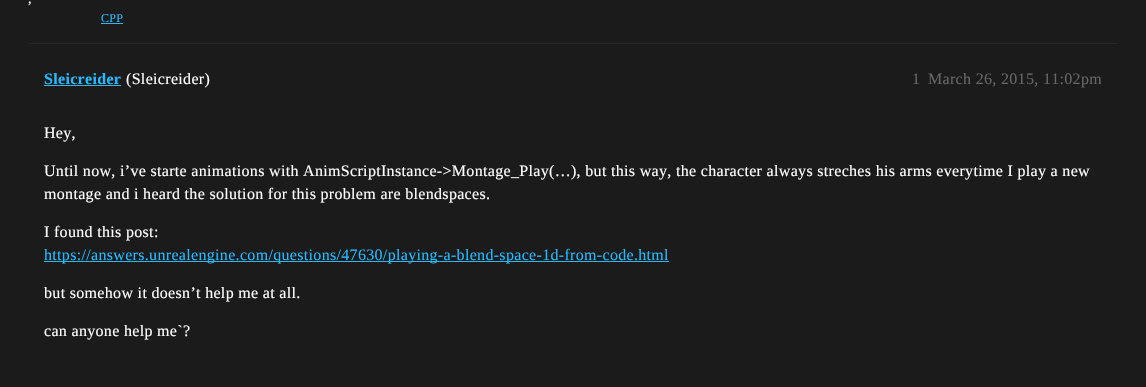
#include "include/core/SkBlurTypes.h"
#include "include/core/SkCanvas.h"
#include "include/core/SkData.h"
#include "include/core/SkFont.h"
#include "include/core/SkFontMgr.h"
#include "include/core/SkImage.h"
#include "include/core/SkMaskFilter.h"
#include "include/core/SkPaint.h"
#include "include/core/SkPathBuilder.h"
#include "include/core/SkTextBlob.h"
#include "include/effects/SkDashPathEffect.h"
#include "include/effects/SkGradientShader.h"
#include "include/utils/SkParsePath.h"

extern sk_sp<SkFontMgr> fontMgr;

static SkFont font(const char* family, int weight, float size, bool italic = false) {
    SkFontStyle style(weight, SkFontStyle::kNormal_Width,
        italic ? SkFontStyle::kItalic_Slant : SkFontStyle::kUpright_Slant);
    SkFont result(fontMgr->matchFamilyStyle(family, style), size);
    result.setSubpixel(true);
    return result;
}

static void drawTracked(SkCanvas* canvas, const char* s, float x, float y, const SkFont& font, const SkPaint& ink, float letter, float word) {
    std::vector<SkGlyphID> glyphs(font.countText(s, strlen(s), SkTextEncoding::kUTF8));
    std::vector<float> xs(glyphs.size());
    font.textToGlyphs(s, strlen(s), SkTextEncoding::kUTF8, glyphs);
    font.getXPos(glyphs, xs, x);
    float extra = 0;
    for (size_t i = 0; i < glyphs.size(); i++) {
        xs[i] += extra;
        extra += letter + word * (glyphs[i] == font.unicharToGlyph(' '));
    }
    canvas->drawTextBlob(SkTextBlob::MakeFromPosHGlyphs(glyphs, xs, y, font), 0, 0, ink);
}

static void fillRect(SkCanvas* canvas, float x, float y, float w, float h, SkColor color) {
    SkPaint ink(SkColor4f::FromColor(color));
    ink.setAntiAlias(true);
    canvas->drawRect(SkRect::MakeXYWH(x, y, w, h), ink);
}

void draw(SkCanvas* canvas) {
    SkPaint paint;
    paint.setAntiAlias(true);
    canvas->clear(0xFF1B1B1B);
    SkFont font1 = font("Liberation Serif", 400, 14);
    paint.setColor(0xFFFFFFFF);
    drawTracked(canvas, ",", 28, 3, font1, paint, 0.32f, 0);
    SkFont font2 = font("Liberation Serif", 400, 12);
    paint.setColor(0xFF26BBFF);
    drawTracked(canvas, "CPP", 101, 22, font2, paint, 0.32f, 0);
    fillRect(canvas, 101, 23, 22, 1, 0xFF26BBFF);
    fillRect(canvas, 28, 43, 1090, 1, 0xFF28282C);
    SkFont font3 = font("Liberation Serif", 700, 16);
    drawTracked(canvas, "Sleicreider", 44, 84, font3, paint, 0.32f, 0);
    fillRect(canvas, 44, 85, 77, 1, 0xFF26BBFF);
    SkFont font4 = font("Liberation Serif", 400, 16);
    paint.setColor(0xFFFFFFFF);
    drawTracked(canvas, "(Sleicreider)", 126, 84, font4, paint, 0.32f, 0);
    paint.setColor(0xFF666666);
    drawTracked(canvas, "1", 912, 84, font4, paint, 0.32f, 0);
    drawTracked(canvas, "March 26, 2015, 11:02pm", 928, 84, font4, paint, 0.32f, 0);
    paint.setColor(0xFFFFFFFF);
    drawTracked(canvas, "Hey,", 44, 138, font4, paint, 0.32f, 0);
    drawTracked(canvas, "Until now, i’ve starte animations with AnimScriptInstance->Montage_Play(…), but this way, the character always streches his arms everytime I play a new", 44, 176, font4, paint, 0.32f, 0);
    drawTracked(canvas, "montage and i heard the solution for this problem are blendspaces.", 44, 199, font4, paint, 0.32f, 0);
    drawTracked(canvas, "I found this post:", 44, 237, font4, paint, 0.32f, 0);
    fillRect(canvas, 44, 261, 625, 1, 0xFF26BBFF);
    paint.setColor(0xFF26BBFF);
    drawTracked(canvas, "https://answers.unrealengine.com/questions/47630/playing-a-blend-space-1d-from-code.html", 44, 260, font4, paint, 0.32f, 0);
    paint.setColor(0xFFFFFFFF);
    drawTracked(canvas, "but somehow it doesn’t help me at all.", 44, 298, font4, paint, 0.32f, 0);
    drawTracked(canvas, "can anyone help me`?", 44, 336, font4, paint, 0.32f, 0);
}
